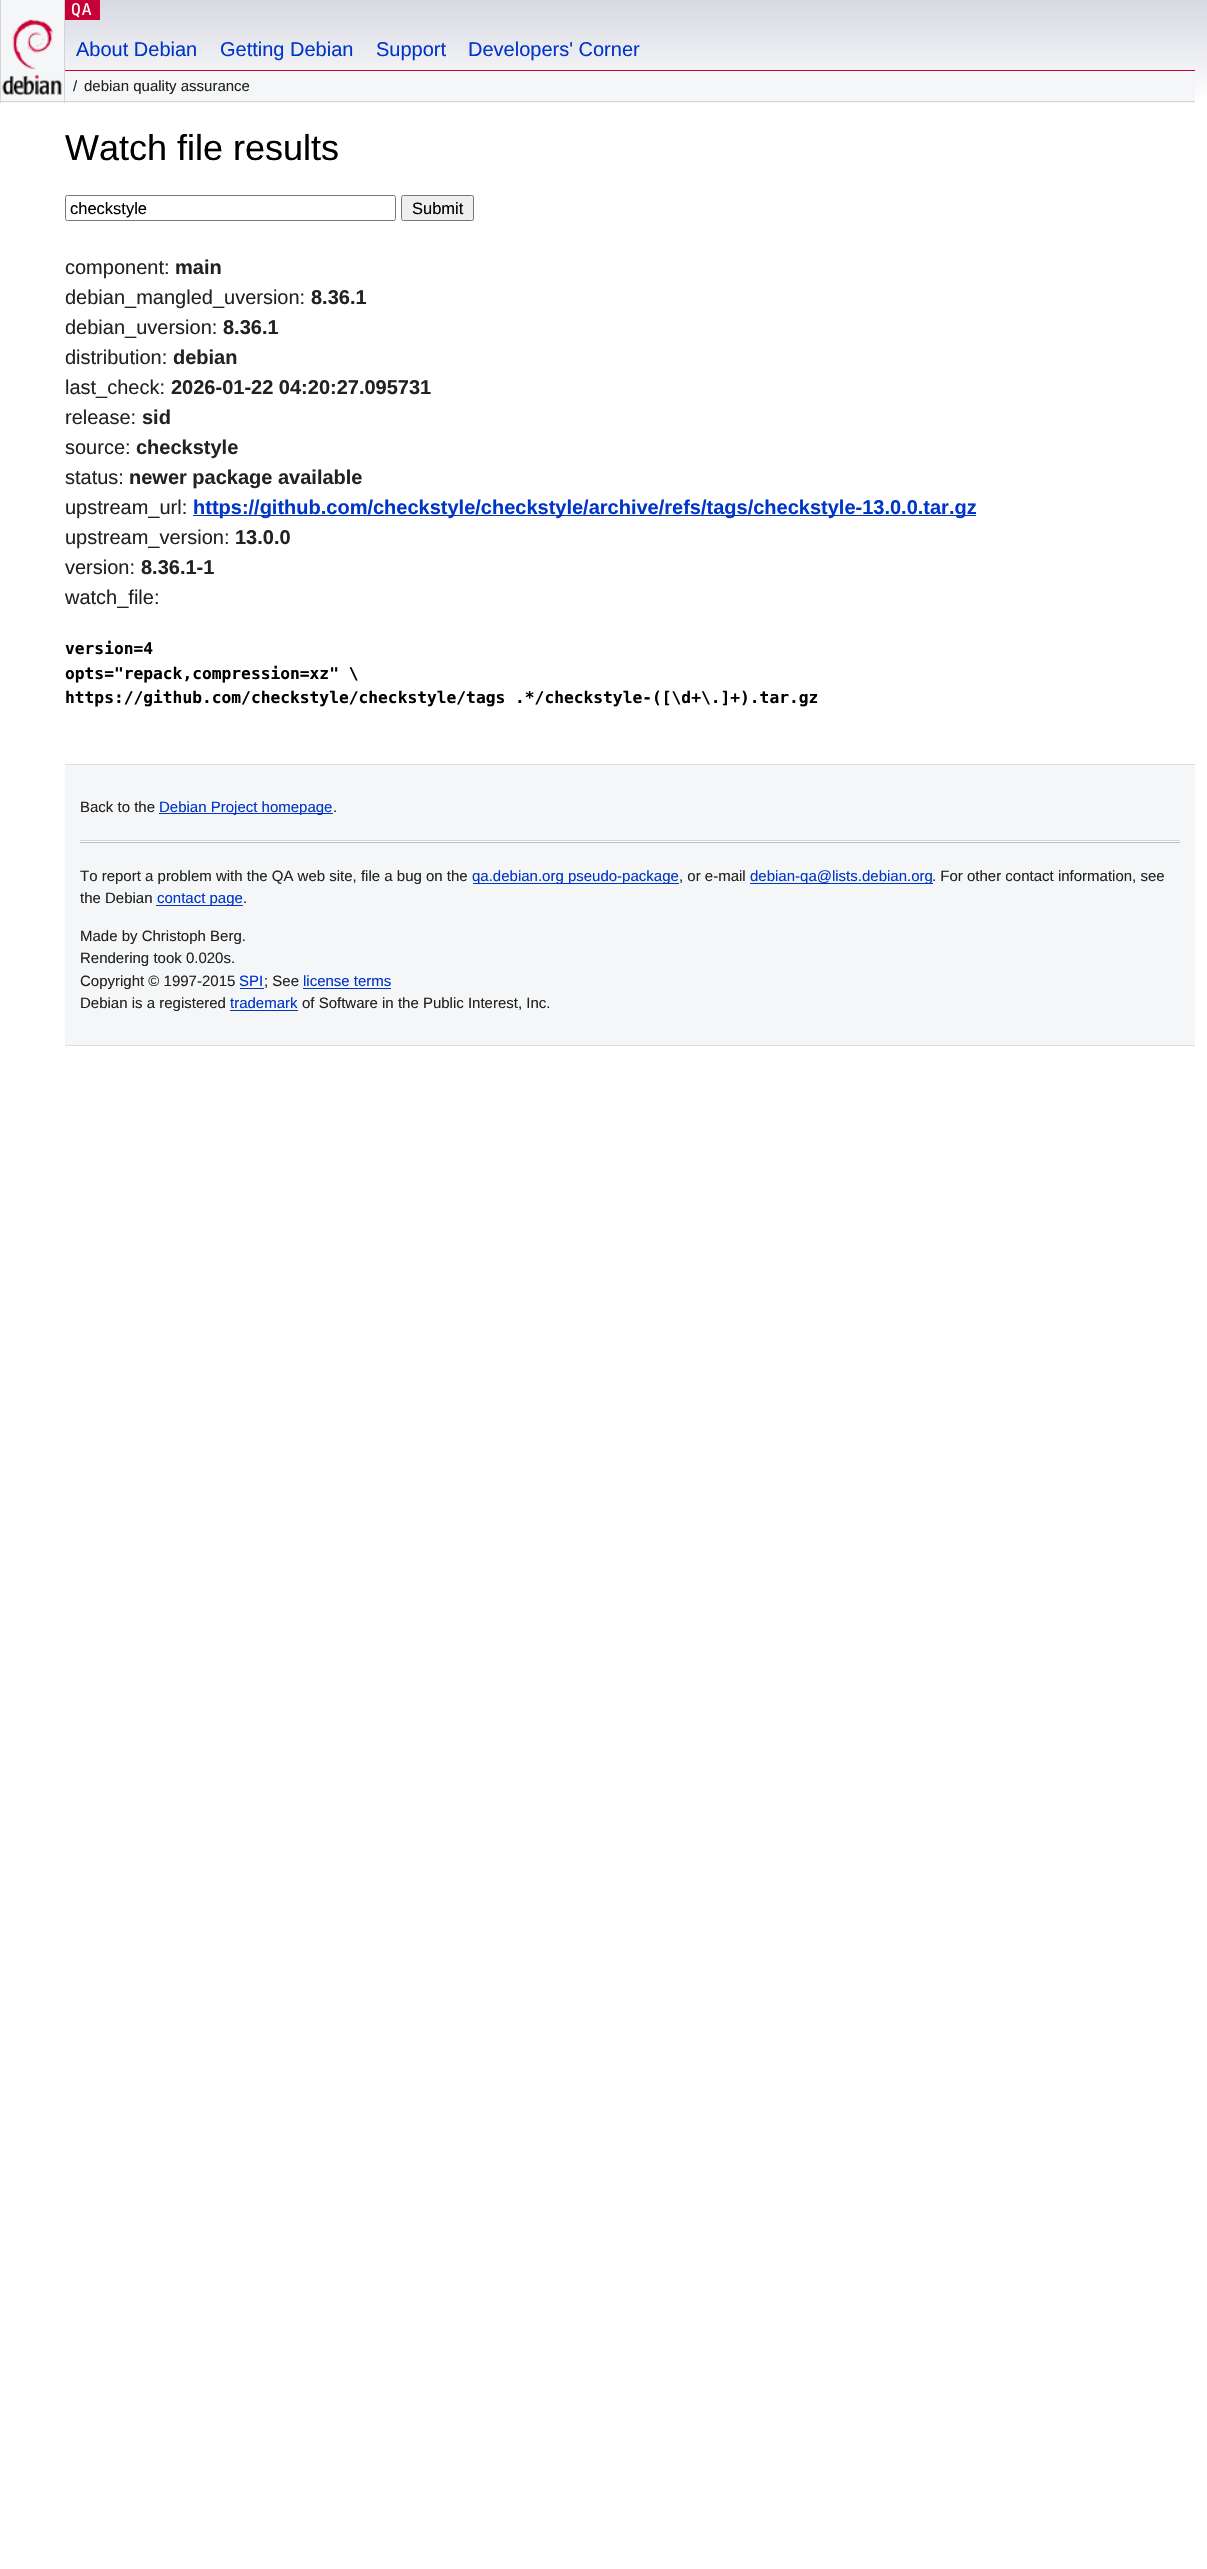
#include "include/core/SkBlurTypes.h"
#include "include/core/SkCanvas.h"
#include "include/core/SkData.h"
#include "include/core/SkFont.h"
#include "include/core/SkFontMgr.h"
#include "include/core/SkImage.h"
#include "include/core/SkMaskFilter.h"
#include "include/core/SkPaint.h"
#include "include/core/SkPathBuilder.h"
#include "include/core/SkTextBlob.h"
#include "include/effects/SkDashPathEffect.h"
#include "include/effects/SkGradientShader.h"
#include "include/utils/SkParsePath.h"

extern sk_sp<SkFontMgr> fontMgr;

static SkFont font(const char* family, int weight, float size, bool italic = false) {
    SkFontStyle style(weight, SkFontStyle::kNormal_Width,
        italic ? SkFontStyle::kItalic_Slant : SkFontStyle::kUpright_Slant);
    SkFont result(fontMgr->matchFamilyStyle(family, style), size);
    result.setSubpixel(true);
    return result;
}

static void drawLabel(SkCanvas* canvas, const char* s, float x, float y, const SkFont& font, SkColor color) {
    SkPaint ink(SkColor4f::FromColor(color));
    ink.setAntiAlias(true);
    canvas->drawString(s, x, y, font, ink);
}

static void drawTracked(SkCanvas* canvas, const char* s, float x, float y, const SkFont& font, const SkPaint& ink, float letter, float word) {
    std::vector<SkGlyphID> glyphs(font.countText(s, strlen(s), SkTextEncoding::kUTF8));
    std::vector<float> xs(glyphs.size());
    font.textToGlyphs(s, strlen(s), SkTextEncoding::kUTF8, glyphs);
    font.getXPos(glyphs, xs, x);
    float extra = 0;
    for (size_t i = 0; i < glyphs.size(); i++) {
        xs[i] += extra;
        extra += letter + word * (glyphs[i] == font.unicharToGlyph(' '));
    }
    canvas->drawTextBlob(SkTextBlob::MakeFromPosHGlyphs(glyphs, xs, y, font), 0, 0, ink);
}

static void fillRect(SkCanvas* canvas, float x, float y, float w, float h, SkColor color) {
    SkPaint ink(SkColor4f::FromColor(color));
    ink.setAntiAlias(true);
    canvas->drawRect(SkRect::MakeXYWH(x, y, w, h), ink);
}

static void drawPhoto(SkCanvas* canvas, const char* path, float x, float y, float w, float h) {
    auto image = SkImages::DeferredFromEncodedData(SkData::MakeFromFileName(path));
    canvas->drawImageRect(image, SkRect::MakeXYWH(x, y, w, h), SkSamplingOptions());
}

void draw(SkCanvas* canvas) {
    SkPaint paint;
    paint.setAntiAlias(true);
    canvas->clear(0xFFFFFFFF);
    {
        const SkColor colors[] = {0xFFD7D9E2, 0xFFFFFFFF};
        const float stops[] = {0, 1};
        const SkPoint ends[] = {{604, 0}, {604, 103}};
        paint.setShader(SkGradientShader::MakeLinear(ends, colors, stops, 2, SkTileMode::kClamp));
        paint.setAlpha(255);
    }
    canvas->drawRect(SkRect::MakeXYWH(65, 0, 1142, 97), paint);
    fillRect(canvas, 1, 0, 63, 103, 0xFFF5F6F7);
    fillRect(canvas, 64, 0, 1, 103, 0xFFD2D3D7);
    fillRect(canvas, 0, 101, 65, 1, 0xFFD2D3D7);
    fillRect(canvas, 0, 0, 1, 103, 0xFFD2D3D7);
    drawPhoto(canvas, "assets/img1.png", 2, 19, 60, 76);
    fillRect(canvas, 65, 0, 35, 20, 0xFFC70036);
    SkFont font1 = font("DejaVu Sans Mono", 400, 16.25f);
    paint.setShader(nullptr);
    paint.setColor(0xFFFFFFFF);
    drawTracked(canvas, "QA", 71, 15, font1, paint, 1, 0);
    fillRect(canvas, 65, 70, 1130, 1, 0xFFC70036);
    SkFont font2 = font("Liberation Sans", 400, 20);
    drawLabel(canvas, "About Debian", 76, 56, font2, 0xFF0035C7);
    drawLabel(canvas, "Getting Debian", 220, 56, font2, 0xFF0035C7);
    drawLabel(canvas, "Support", 376, 56, font2, 0xFF0035C7);
    drawLabel(canvas, "Developers' Corner", 468, 56, font2, 0xFF0035C7);
    fillRect(canvas, 65, 71, 1130, 32, 0xFFF5F6F7);
    fillRect(canvas, 65, 101, 1130, 1, 0xFFD2D3D7);
    SkFont font3 = font("Liberation Sans", 400, 15);
    drawLabel(canvas, "/", 73, 91, font3, 0xFF222222);
    drawLabel(canvas, "debian quality assurance", 84, 91, font3, 0xFF222222);
    SkFont font4 = font("Liberation Sans", 400, 36);
    drawLabel(canvas, "Watch file results", 65, 160, font4, 0xFF000000);
    paint.setStroke(true);
    paint.setStrokeWidth(1);
    paint.setColor(0xFF767676);
    canvas->drawRoundRect(SkRect::MakeXYWH(65.5f, 195.5f, 330, 25), 2, 2, paint);
    SkFont font5 = font("Liberation Sans", 400, 16.5f);
    drawLabel(canvas, "checkstyle", 70, 214, font5, 0xFF000000);
    paint.setStroke(false);
    paint.setColor(0xFFEFEFEF);
    canvas->drawRoundRect(SkRect::MakeXYWH(401.5f, 195.5f, 72, 25), 2, 2, paint);
    paint.setStroke(true);
    paint.setColor(0xFF767676);
    canvas->drawRoundRect(SkRect::MakeXYWH(401.5f, 195.5f, 72, 25), 2, 2, paint);
    drawLabel(canvas, "Submit", 412, 214, font5, 0xFF000000);
    drawLabel(canvas, "component:", 65, 274, font2, 0xFF222222);
    SkFont font6 = font("Liberation Sans", 700, 20);
    drawLabel(canvas, "main", 175, 274, font6, 0xFF222222);
    drawLabel(canvas, "debian_mangled_uversion:", 65, 304, font2, 0xFF222222);
    drawLabel(canvas, "8.36.1", 311, 304, font6, 0xFF222222);
    drawLabel(canvas, "debian_uversion:", 65, 334, font2, 0xFF222222);
    drawLabel(canvas, "8.36.1", 223, 334, font6, 0xFF222222);
    drawLabel(canvas, "distribution:", 65, 364, font2, 0xFF222222);
    drawLabel(canvas, "debian", 173, 364, font6, 0xFF222222);
    drawLabel(canvas, "last_check:", 65, 394, font2, 0xFF222222);
    drawLabel(canvas, "2026-01-22 04:20:27.095731", 171, 394, font6, 0xFF222222);
    drawLabel(canvas, "release:", 65, 424, font2, 0xFF222222);
    drawLabel(canvas, "sid", 142, 424, font6, 0xFF222222);
    drawLabel(canvas, "source:", 65, 454, font2, 0xFF222222);
    drawLabel(canvas, "checkstyle", 136, 454, font6, 0xFF222222);
    drawLabel(canvas, "status:", 65, 484, font2, 0xFF222222);
    drawLabel(canvas, "newer package available", 129, 484, font6, 0xFF222222);
    drawLabel(canvas, "upstream_url:", 65, 514, font2, 0xFF222222);
    fillRect(canvas, 193, 515, 783, 1, 0xFF0035C7);
    drawLabel(canvas, "https://github.com/checkstyle/checkstyle/archive/refs/tags/checkstyle-13.0.0.tar.gz", 193, 514, font6, 0xFF0035C7);
    drawLabel(canvas, "upstream_version:", 65, 544, font2, 0xFF222222);
    drawLabel(canvas, "13.0.0", 235, 544, font6, 0xFF222222);
    drawLabel(canvas, "version:", 65, 574, font2, 0xFF222222);
    drawLabel(canvas, "8.36.1-1", 141, 574, font6, 0xFF222222);
    drawLabel(canvas, "watch_file:", 65, 604, font2, 0xFF222222);
    SkFont font7 = font("DejaVu Sans Mono", 700, 16.25f);
    drawLabel(canvas, "version=4", 65, 654, font7, 0xFF000000);
    drawLabel(canvas, "opts=\"repack,compression=xz\" \\", 65, 679, font7, 0xFF000000);
    drawLabel(canvas, "https://github.com/checkstyle/checkstyle/tags .*/checkstyle-([\\d+\\.]+).tar.gz", 65, 703, font7, 0xFF000000);
    fillRect(canvas, 65, 765, 1130, 280, 0xFFF5F6F7);
    fillRect(canvas, 65, 764, 1130, 1, 0xFFDFDFE0);
    fillRect(canvas, 65, 1045, 1130, 1, 0xFFDFDFE0);
    drawLabel(canvas, "Back to the", 80, 812, font3, 0xFF222222);
    fillRect(canvas, 159, 813, 174, 1, 0xFF0035C7);
    drawLabel(canvas, "Debian Project homepage", 159, 812, font3, 0xFF0035C7);
    drawLabel(canvas, ".", 333, 812, font3, 0xFF222222);
    fillRect(canvas, 80, 842, 1100, 1, 0xFFBBBBBB);
    fillRect(canvas, 80, 840, 1100, 1, 0xFFD2D3D7);
    fillRect(canvas, 80, 841, 1100, 1, 0xFFFFFFFF);
    drawLabel(canvas, "To report a problem with the QA web site, file a bug on the", 80, 881, font3, 0xFF222222);
    fillRect(canvas, 473, 883, 206, 1, 0xFF0035C7);
    drawLabel(canvas, "qa.debian.org pseudo-package", 472, 881, font3, 0xFF0035C7);
    drawLabel(canvas, ", or e-mail", 679, 881, font3, 0xFF222222);
    fillRect(canvas, 750, 883, 183, 1, 0xFF0035C7);
    drawLabel(canvas, "debian-qa@lists.debian.org", 750, 881, font3, 0xFF0035C7);
    drawLabel(canvas, ". For other contact information, see", 932, 881, font3, 0xFF222222);
    drawLabel(canvas, "the Debian", 80, 903, font3, 0xFF222222);
    fillRect(canvas, 156, 905, 87, 1, 0xFF0035C7);
    drawLabel(canvas, "contact page", 157, 903, font3, 0xFF0035C7);
    drawLabel(canvas, ".", 243, 903, font3, 0xFF222222);
    drawLabel(canvas, "Made by Christoph Berg.", 80, 941, font3, 0xFF222222);
    drawLabel(canvas, "Rendering took 0.020s.", 80, 963, font3, 0xFF222222);
    drawLabel(canvas, "Copyright © 1997-2015", 80, 986, font3, 0xFF222222);
    drawLabel(canvas, "SPI", 239, 986, font3, 0xFF0035C7);
    fillRect(canvas, 240, 988, 24, 1, 0xFF0035C7);
    drawLabel(canvas, "; See", 264, 986, font3, 0xFF222222);
    drawLabel(canvas, "license terms", 303, 986, font3, 0xFF0035C7);
    fillRect(canvas, 303, 988, 88, 1, 0xFF0035C7);
    drawLabel(canvas, "Debian is a registered", 80, 1008, font3, 0xFF222222);
    drawLabel(canvas, "trademark", 230, 1008, font3, 0xFF0035C7);
    fillRect(canvas, 230, 1010, 68, 1, 0xFF0035C7);
    drawLabel(canvas, "of Software in the Public Interest, Inc.", 302, 1008, font3, 0xFF222222);
}
